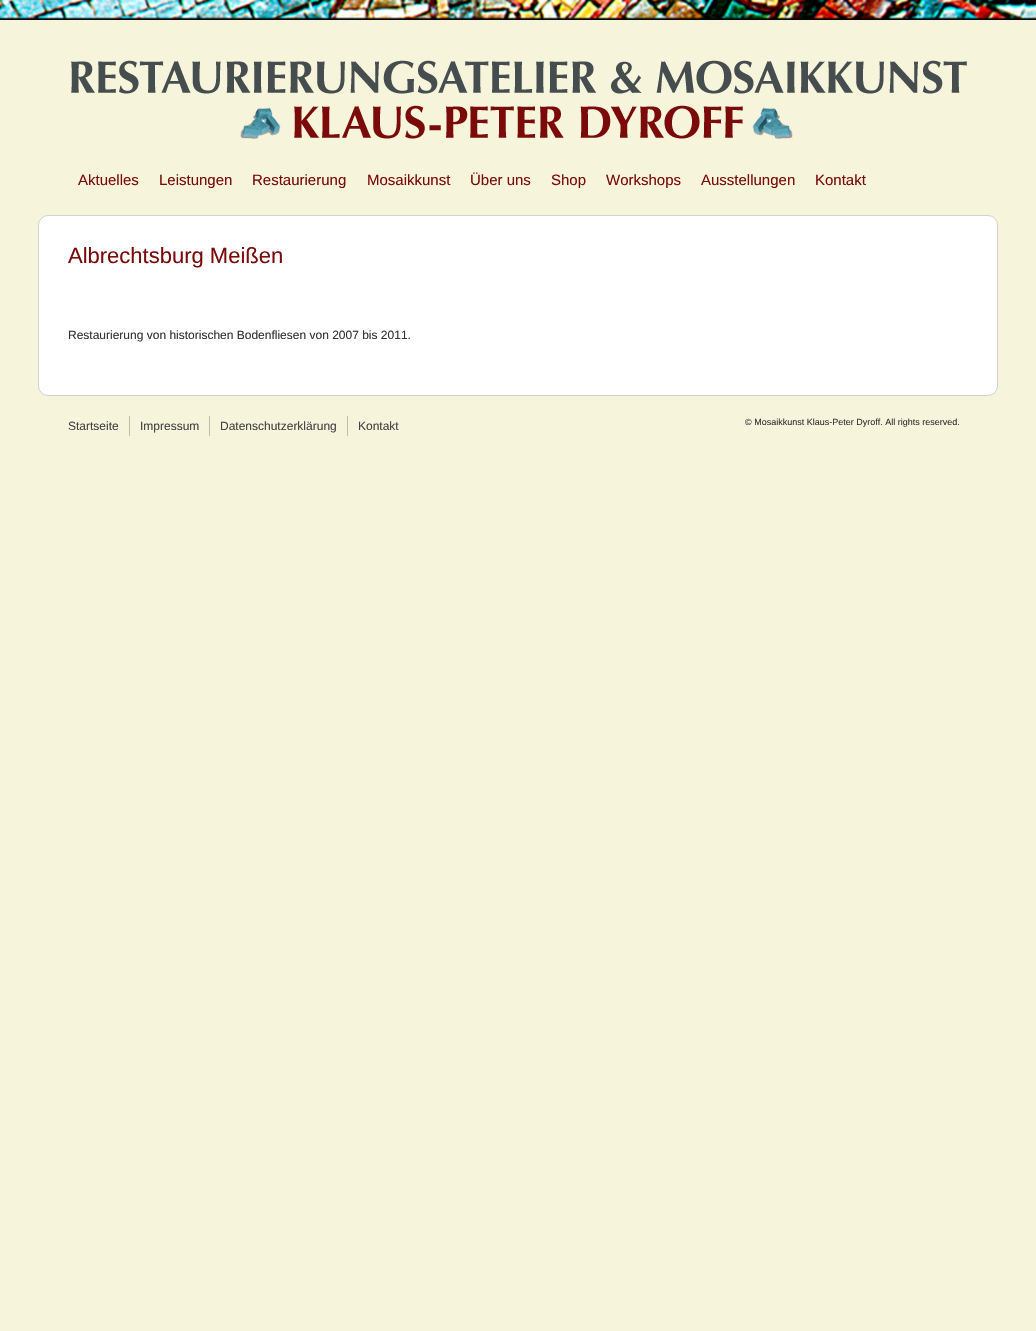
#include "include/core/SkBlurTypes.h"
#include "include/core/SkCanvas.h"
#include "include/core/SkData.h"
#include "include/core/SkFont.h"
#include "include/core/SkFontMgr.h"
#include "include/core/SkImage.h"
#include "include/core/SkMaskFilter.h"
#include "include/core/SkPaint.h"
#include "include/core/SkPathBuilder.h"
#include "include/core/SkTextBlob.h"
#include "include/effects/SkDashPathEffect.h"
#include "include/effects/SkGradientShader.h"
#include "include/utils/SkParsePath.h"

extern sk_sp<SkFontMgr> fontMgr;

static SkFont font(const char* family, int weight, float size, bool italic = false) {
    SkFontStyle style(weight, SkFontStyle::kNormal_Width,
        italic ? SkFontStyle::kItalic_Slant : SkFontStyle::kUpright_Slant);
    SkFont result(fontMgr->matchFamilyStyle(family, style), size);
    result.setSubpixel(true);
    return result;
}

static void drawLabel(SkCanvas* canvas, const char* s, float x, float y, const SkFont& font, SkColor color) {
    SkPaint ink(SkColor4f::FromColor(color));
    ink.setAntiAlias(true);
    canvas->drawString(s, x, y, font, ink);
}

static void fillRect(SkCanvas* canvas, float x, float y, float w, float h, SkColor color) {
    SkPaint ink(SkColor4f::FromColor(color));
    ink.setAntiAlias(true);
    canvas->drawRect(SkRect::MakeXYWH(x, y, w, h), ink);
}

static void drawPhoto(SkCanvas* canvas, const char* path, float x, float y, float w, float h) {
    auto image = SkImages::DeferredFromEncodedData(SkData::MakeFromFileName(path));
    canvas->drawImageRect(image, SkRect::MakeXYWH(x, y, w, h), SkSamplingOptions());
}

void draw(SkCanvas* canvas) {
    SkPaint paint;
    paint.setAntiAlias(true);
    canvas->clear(0xFFF6F4DB);
    drawPhoto(canvas, "assets/img1.png", 0, 0, 1036, 20);
    drawPhoto(canvas, "assets/img2.png", 71, 60, 896, 80);
    SkFont font1 = font("Liberation Sans", 400, 15);
    drawLabel(canvas, "Aktuelles", 78, 185, font1, 0xFF7B0B0B);
    drawLabel(canvas, "Leistungen", 159, 185, font1, 0xFF7B0B0B);
    drawLabel(canvas, "Restaurierung", 252, 185, font1, 0xFF7B0B0B);
    drawLabel(canvas, "Mosaikkunst", 367, 185, font1, 0xFF7B0B0B);
    drawLabel(canvas, "Über uns", 470, 185, font1, 0xFF7B0B0B);
    drawLabel(canvas, "Shop", 551, 185, font1, 0xFF7B0B0B);
    drawLabel(canvas, "Workshops", 606, 185, font1, 0xFF7B0B0B);
    drawLabel(canvas, "Ausstellungen", 701, 185, font1, 0xFF7B0B0B);
    drawLabel(canvas, "Kontakt", 815, 185, font1, 0xFF7B0B0B);
    paint.setColor(0xFFFFFFFF);
    canvas->drawRoundRect(SkRect::MakeXYWH(38.5f, 215.5f, 959, 180), 9.5f, 9.5f, paint);
    paint.setStroke(true);
    paint.setStrokeWidth(1);
    paint.setColor(0xFFD2D2CF);
    canvas->drawRoundRect(SkRect::MakeXYWH(38.5f, 215.5f, 959, 180), 9.5f, 9.5f, paint);
    SkFont font2 = font("Liberation Sans", 400, 22);
    drawLabel(canvas, "Albrechtsburg Meißen", 68, 263, font2, 0xFF7B0B0B);
    SkFont font3 = font("Liberation Sans", 400, 12);
    drawLabel(canvas, "Restaurierung von historischen Bodenfliesen von 2007 bis 2011.", 68, 339, font3, 0xFF333333);
    fillRect(canvas, 129, 416, 1, 20, 0xFFBEBEA7);
    drawLabel(canvas, "Startseite", 68, 430, font3, 0xFF424242);
    fillRect(canvas, 209, 416, 1, 20, 0xFFBEBEA7);
    drawLabel(canvas, "Impressum", 140, 430, font3, 0xFF424242);
    fillRect(canvas, 347, 416, 1, 20, 0xFFBEBEA7);
    drawLabel(canvas, "Datenschutzerklärung", 220, 430, font3, 0xFF424242);
    drawLabel(canvas, "Kontakt", 358, 430, font3, 0xFF424242);
    SkFont font4 = font("Liberation Sans", 400, 9);
    drawLabel(canvas, "© Mosaikkunst Klaus-Peter Dyroff. All rights reserved.", 745, 425, font4, 0xFF333333);
}
